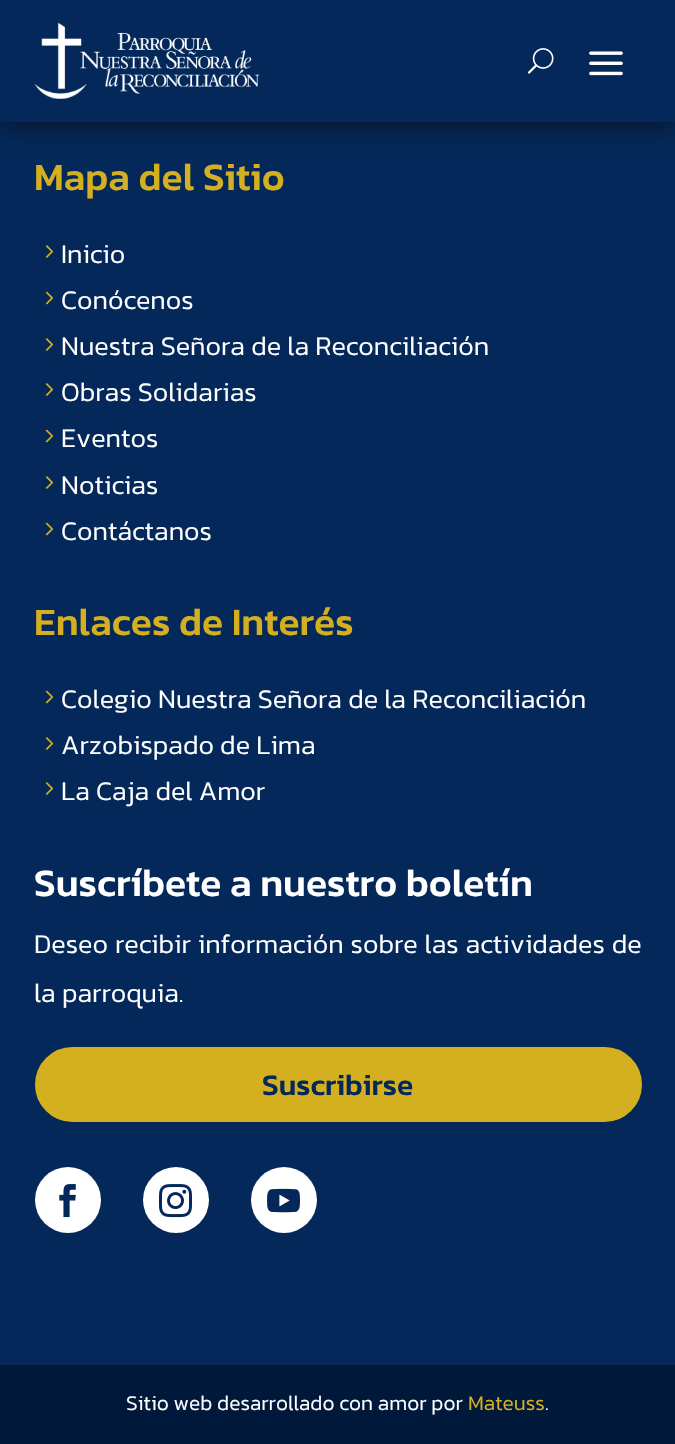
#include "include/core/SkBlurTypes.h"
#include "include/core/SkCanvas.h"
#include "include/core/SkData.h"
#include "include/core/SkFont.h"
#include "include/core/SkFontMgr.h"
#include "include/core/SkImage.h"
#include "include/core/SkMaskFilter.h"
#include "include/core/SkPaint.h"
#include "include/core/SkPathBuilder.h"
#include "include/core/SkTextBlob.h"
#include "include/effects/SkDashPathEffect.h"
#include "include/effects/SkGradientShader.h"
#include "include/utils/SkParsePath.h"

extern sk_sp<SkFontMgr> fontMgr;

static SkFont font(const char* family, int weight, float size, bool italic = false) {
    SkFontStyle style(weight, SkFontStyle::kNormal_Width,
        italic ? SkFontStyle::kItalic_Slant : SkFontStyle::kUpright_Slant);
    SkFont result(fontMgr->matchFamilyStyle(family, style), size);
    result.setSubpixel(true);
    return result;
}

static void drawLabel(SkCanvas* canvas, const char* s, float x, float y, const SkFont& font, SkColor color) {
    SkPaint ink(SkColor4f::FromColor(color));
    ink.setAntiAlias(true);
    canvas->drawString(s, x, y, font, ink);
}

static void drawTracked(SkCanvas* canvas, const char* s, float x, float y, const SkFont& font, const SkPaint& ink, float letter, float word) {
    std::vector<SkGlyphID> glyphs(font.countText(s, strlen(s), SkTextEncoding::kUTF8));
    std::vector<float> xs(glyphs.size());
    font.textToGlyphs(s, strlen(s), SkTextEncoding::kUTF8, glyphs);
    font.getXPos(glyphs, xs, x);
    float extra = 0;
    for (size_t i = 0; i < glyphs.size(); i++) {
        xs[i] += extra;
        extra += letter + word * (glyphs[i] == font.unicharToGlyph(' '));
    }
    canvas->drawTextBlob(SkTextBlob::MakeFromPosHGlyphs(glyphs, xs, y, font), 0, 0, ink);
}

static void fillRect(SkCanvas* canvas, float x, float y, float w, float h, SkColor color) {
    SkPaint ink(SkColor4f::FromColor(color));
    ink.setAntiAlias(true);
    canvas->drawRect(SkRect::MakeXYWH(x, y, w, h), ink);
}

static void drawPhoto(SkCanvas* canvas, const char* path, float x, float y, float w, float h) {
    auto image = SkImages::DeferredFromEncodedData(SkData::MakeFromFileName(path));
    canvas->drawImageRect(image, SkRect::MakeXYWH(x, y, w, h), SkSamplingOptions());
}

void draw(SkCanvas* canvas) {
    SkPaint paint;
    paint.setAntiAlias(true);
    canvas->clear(0xFF032859);
    paint.setColor(0x990A0101);
    paint.setMaskFilter(SkMaskFilter::MakeBlur(kNormal_SkBlurStyle, 13.5f));
    canvas->drawRect(SkRect::MakeXYWH(0, 3, 675, 122), paint);
    paint.setMaskFilter(nullptr);
    fillRect(canvas, 0, 0, 675, 122, 0xFF032859);
    drawPhoto(canvas, "assets/img1.png", 34, 22, 226, 77);
    drawPhoto(canvas, "assets/img2.png", 527, 48, 27, 26);
    drawPhoto(canvas, "assets/img3.png", 589, 51, 34, 25);
    SkFont font1 = font("Kanit", 500, 39);
    drawLabel(canvas, "Mapa del Sitio", 34, 190, font1, 0xFFD4B021);
    drawPhoto(canvas, "assets/img4.png", 45, 245, 8, 13);
    SkFont font2 = font("Kanit", 300, 27);
    drawLabel(canvas, "Inicio", 61, 263, font2, 0xFFFFFFFF);
    drawPhoto(canvas, "assets/img5.png", 45, 291, 8, 14);
    drawLabel(canvas, "Conócenos", 61, 309, font2, 0xFFFFFFFF);
    drawPhoto(canvas, "assets/img4.png", 45, 338, 8, 13);
    drawLabel(canvas, "Nuestra Señora de la Reconciliación", 61, 355, font2, 0xFFFFFFFF);
    drawPhoto(canvas, "assets/img4.png", 45, 383, 8, 13);
    drawLabel(canvas, "Obras Solidarias", 61, 401, font2, 0xFFFFFFFF);
    drawPhoto(canvas, "assets/img5.png", 45, 429, 8, 14);
    drawLabel(canvas, "Eventos", 61, 447, font2, 0xFFFFFFFF);
    drawPhoto(canvas, "assets/img4.png", 45, 476, 8, 13);
    drawLabel(canvas, "Noticias", 61, 494, font2, 0xFFFFFFFF);
    drawPhoto(canvas, "assets/img5.png", 45, 522, 8, 14);
    drawLabel(canvas, "Contáctanos", 61, 540, font2, 0xFFFFFFFF);
    drawLabel(canvas, "Enlaces de Interés", 34, 635, font1, 0xFFD4B021);
    drawPhoto(canvas, "assets/img5.png", 45, 690, 8, 14);
    drawLabel(canvas, "Colegio Nuestra Señora de la Reconciliación", 61, 708, font2, 0xFFFFFFFF);
    drawPhoto(canvas, "assets/img4.png", 45, 737, 8, 13);
    drawLabel(canvas, "Arzobispado de Lima", 61, 754, font2, 0xFFFFFFFF);
    drawPhoto(canvas, "assets/img4.png", 45, 782, 8, 13);
    drawLabel(canvas, "La Caja del Amor", 61, 800, font2, 0xFFFFFFFF);
    drawLabel(canvas, "Suscríbete a nuestro boletín", 34, 896, font1, 0xFFFFFFFF);
    paint.setColor(0xFFFFFFFF);
    drawTracked(canvas, "Deseo recibir información sobre las actividades de", 34, 953, font2, paint, 0, 0.75f);
    drawLabel(canvas, "la parroquia.", 34, 1002, font2, 0xFFFFFFFF);
    paint.setColor(0xFFD4B021);
    canvas->drawRoundRect(SkRect::MakeXYWH(36.5f, 1048.5f, 604, 72), 36, 36, paint);
    paint.setStroke(true);
    paint.setStrokeWidth(3);
    canvas->drawRoundRect(SkRect::MakeXYWH(36.5f, 1048.5f, 604, 72), 36, 36, paint);
    SkFont font3 = font("Kanit", 500, 30);
    drawLabel(canvas, "Suscribirse", 262, 1095, font3, 0xFF032859);
    paint.setStroke(false);
    paint.setColor(0xFFFFFFFF);
    canvas->drawCircle(68, 1200, 33, paint);
    drawPhoto(canvas, "assets/img6.png", 59, 1184, 17, 34);
    canvas->drawCircle(176, 1200, 33, paint);
    drawPhoto(canvas, "assets/img7.png", 159, 1184, 33, 34);
    canvas->drawCircle(284, 1200, 33, paint);
    drawPhoto(canvas, "assets/img8.png", 267, 1188, 33, 25);
    fillRect(canvas, 0, 1365, 675, 79, 0xFF00183A);
    SkFont font4 = font("Kanit", 300, 21);
    drawLabel(canvas, "Sitio web desarrollado con amor por", 126, 1410, font4, 0xFFFFFFFF);
    drawLabel(canvas, "Mateuss", 468, 1410, font4, 0xFFD4B021);
    drawLabel(canvas, ".", 545, 1410, font4, 0xFFFFFFFF);
}
